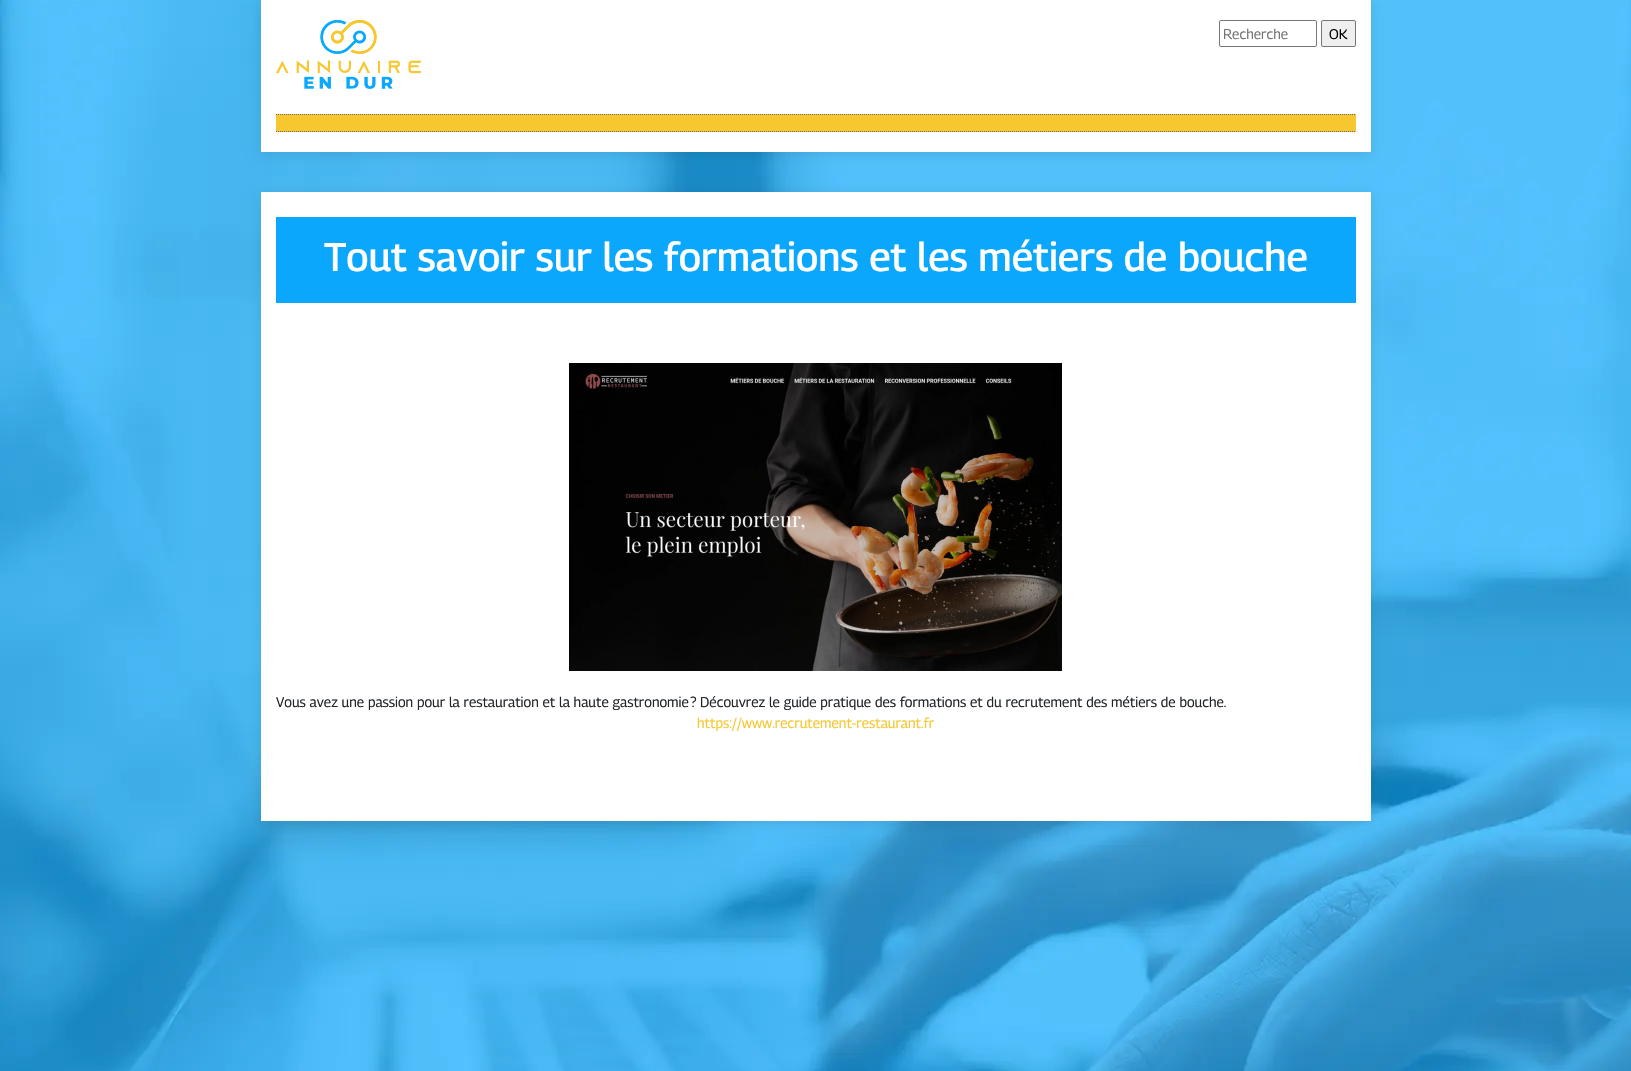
#include "include/core/SkBlurTypes.h"
#include "include/core/SkCanvas.h"
#include "include/core/SkData.h"
#include "include/core/SkFont.h"
#include "include/core/SkFontMgr.h"
#include "include/core/SkImage.h"
#include "include/core/SkMaskFilter.h"
#include "include/core/SkPaint.h"
#include "include/core/SkPathBuilder.h"
#include "include/core/SkTextBlob.h"
#include "include/effects/SkDashPathEffect.h"
#include "include/effects/SkGradientShader.h"
#include "include/utils/SkParsePath.h"

extern sk_sp<SkFontMgr> fontMgr;

static SkFont font(const char* family, int weight, float size, bool italic = false) {
    SkFontStyle style(weight, SkFontStyle::kNormal_Width,
        italic ? SkFontStyle::kItalic_Slant : SkFontStyle::kUpright_Slant);
    SkFont result(fontMgr->matchFamilyStyle(family, style), size);
    result.setSubpixel(true);
    return result;
}

static void drawLabel(SkCanvas* canvas, const char* s, float x, float y, const SkFont& font, SkColor color) {
    SkPaint ink(SkColor4f::FromColor(color));
    ink.setAntiAlias(true);
    canvas->drawString(s, x, y, font, ink);
}

static void fillRect(SkCanvas* canvas, float x, float y, float w, float h, SkColor color) {
    SkPaint ink(SkColor4f::FromColor(color));
    ink.setAntiAlias(true);
    canvas->drawRect(SkRect::MakeXYWH(x, y, w, h), ink);
}

static void drawPhoto(SkCanvas* canvas, const char* path, float x, float y, float w, float h) {
    auto image = SkImages::DeferredFromEncodedData(SkData::MakeFromFileName(path));
    canvas->drawImageRect(image, SkRect::MakeXYWH(x, y, w, h), SkSamplingOptions());
}

static SkPath parsePath(const char* data, bool evenOdd = false) {
    SkPath result = *SkParsePath::FromSVGString(data);
    if (evenOdd) result.setFillType(SkPathFillType::kEvenOdd);
    return result;
}

void draw(SkCanvas* canvas) {
    SkPaint paint;
    paint.setAntiAlias(true);
    canvas->clear(0xFFFFFFFF);
    drawPhoto(canvas, "assets/img1.png", 0, 0, 1631, 1071);
    paint.setColor(0x1A000000);
    paint.setMaskFilter(SkMaskFilter::MakeBlur(kNormal_SkBlurStyle, 6.5f));
    canvas->drawRect(SkRect::MakeXYWH(261, 2, 1110, 152), paint);
    paint.setMaskFilter(nullptr);
    fillRect(canvas, 261, 0, 1110, 152, 0xFFFFFFFF);
    drawPhoto(canvas, "assets/img2.png", 276, 20, 145, 69);
    paint.setStroke(true);
    paint.setStrokeWidth(1);
    paint.setColor(0xFF767676);
    canvas->drawRoundRect(SkRect::MakeXYWH(1219.5f, 20.5f, 97, 26), 1.5f, 1.5f, paint);
    SkFont font1 = font("Georama", 400, 14);
    drawLabel(canvas, "Recherche", 1223, 39, font1, 0xFF757575);
    paint.setStroke(false);
    paint.setColor(0xFFEFEFEF);
    canvas->drawRoundRect(SkRect::MakeXYWH(1321.5f, 20.5f, 34, 26), 1.5f, 1.5f, paint);
    paint.setStroke(true);
    paint.setColor(0xFF767676);
    canvas->drawRoundRect(SkRect::MakeXYWH(1321.5f, 20.5f, 34, 26), 1.5f, 1.5f, paint);
    drawLabel(canvas, "OK", 1329, 39, font1, 0xFF000000);
    fillRect(canvas, 276, 114, 1080, 18, 0xFFF6C72F);
    paint.setColor(0xFF666666);
    paint.setPathEffect(SkDashPathEffect::Make({{1, 1}}, 0));
    canvas->drawPath(parsePath("M276 114.5H1356"), paint);
    paint.setPathEffect(nullptr);
    paint.setPathEffect(SkDashPathEffect::Make({{1, 1}}, 0));
    canvas->drawPath(parsePath("M276 131.5H1356"), paint);
    paint.setPathEffect(nullptr);
    paint.setStroke(false);
    paint.setColor(0x1A000000);
    paint.setMaskFilter(SkMaskFilter::MakeBlur(kNormal_SkBlurStyle, 6.5f));
    canvas->drawRect(SkRect::MakeXYWH(261, 194, 1110, 629), paint);
    paint.setMaskFilter(nullptr);
    fillRect(canvas, 261, 192, 1110, 629, 0xFFFFFFFF);
    fillRect(canvas, 276, 217, 1080, 86, 0xFF0AA7FC);
    SkFont font2 = font("Georama", 500, 40);
    drawLabel(canvas, "Tout savoir sur les formations et les métiers de bouche", 324, 271, font2, 0xFFFFFFFF);
    drawPhoto(canvas, "assets/img3.png", 569, 363, 493, 308);
    drawLabel(canvas, "Vous avez une passion pour la restauration et la haute gastronomie ? Découvrez le guide pratique des formations et du recrutement des métiers de bouche.", 276, 707, font1, 0xFF212529);
    drawLabel(canvas, "https://www.recrutement-restaurant.fr", 697, 728, font1, 0xFFF6C72F);
}
